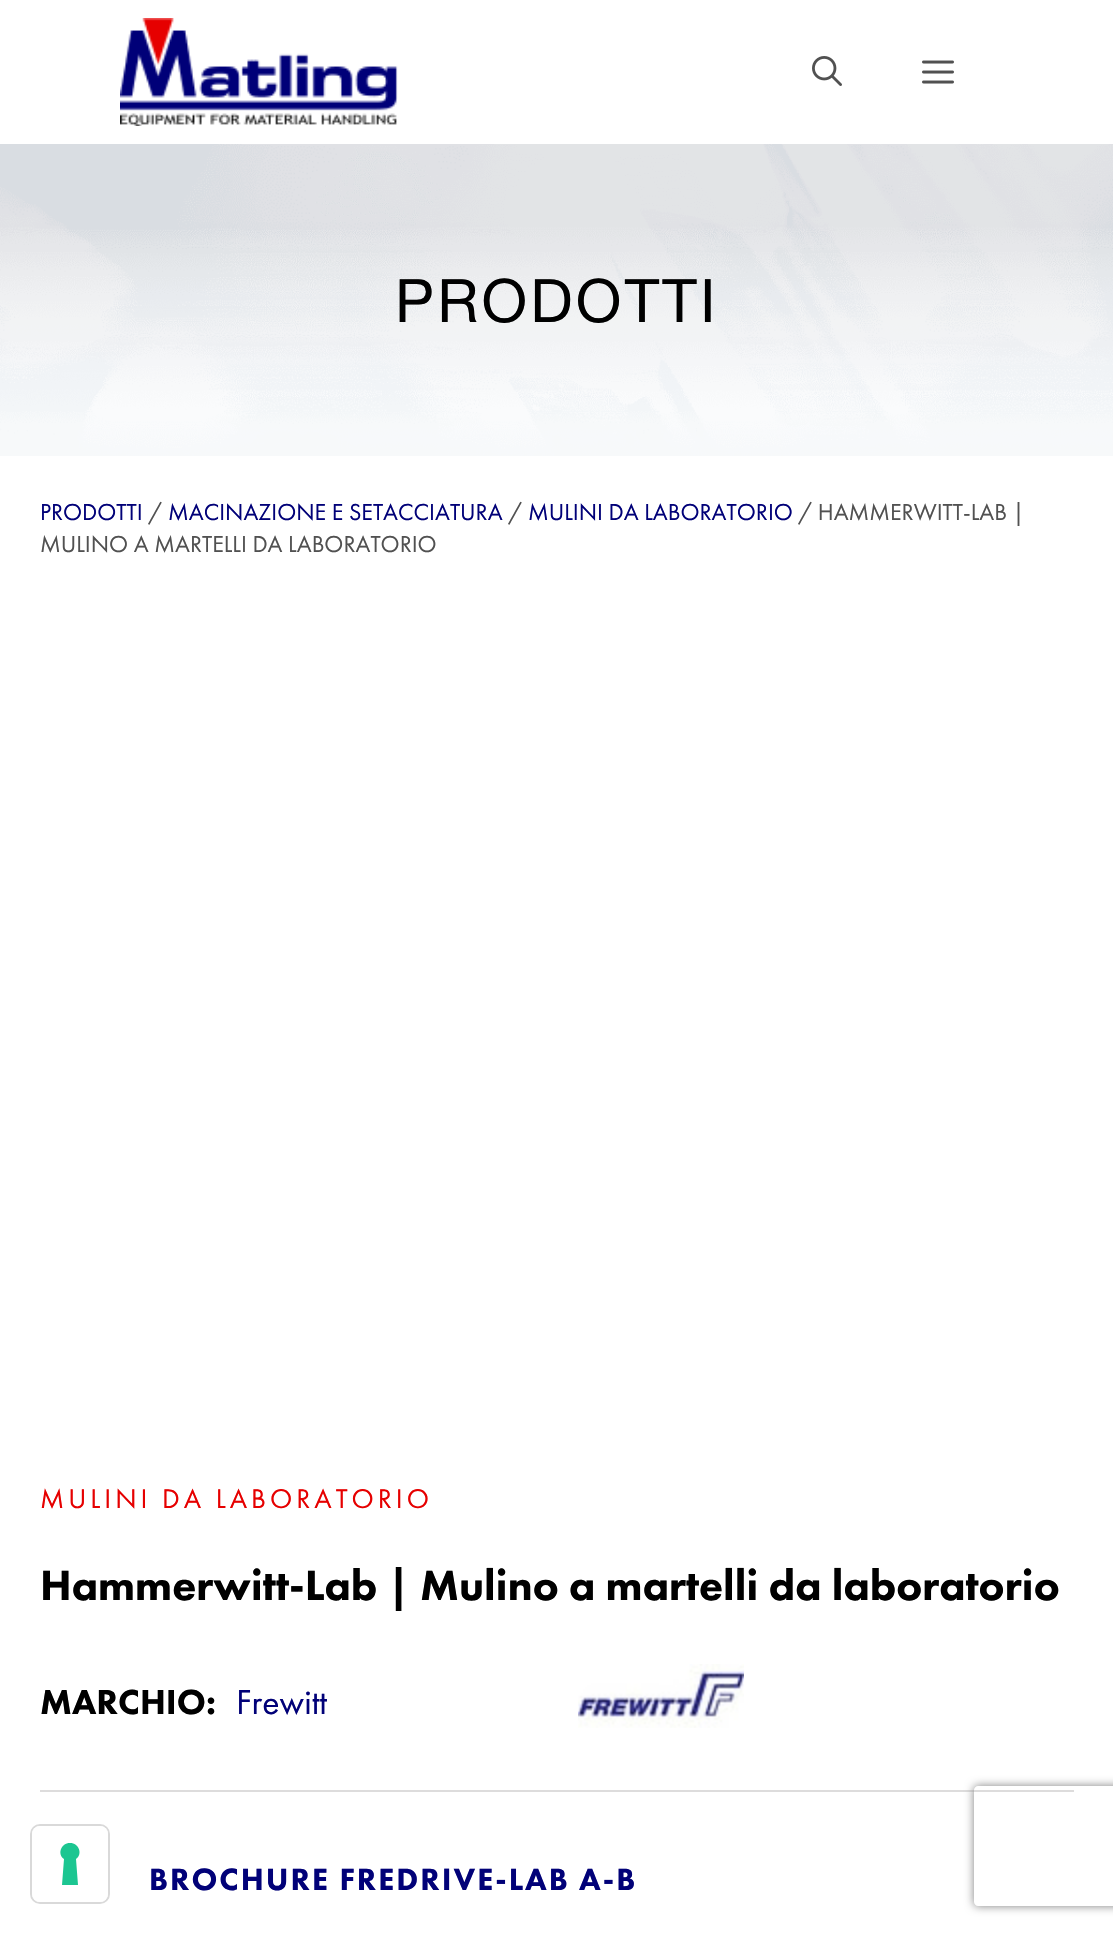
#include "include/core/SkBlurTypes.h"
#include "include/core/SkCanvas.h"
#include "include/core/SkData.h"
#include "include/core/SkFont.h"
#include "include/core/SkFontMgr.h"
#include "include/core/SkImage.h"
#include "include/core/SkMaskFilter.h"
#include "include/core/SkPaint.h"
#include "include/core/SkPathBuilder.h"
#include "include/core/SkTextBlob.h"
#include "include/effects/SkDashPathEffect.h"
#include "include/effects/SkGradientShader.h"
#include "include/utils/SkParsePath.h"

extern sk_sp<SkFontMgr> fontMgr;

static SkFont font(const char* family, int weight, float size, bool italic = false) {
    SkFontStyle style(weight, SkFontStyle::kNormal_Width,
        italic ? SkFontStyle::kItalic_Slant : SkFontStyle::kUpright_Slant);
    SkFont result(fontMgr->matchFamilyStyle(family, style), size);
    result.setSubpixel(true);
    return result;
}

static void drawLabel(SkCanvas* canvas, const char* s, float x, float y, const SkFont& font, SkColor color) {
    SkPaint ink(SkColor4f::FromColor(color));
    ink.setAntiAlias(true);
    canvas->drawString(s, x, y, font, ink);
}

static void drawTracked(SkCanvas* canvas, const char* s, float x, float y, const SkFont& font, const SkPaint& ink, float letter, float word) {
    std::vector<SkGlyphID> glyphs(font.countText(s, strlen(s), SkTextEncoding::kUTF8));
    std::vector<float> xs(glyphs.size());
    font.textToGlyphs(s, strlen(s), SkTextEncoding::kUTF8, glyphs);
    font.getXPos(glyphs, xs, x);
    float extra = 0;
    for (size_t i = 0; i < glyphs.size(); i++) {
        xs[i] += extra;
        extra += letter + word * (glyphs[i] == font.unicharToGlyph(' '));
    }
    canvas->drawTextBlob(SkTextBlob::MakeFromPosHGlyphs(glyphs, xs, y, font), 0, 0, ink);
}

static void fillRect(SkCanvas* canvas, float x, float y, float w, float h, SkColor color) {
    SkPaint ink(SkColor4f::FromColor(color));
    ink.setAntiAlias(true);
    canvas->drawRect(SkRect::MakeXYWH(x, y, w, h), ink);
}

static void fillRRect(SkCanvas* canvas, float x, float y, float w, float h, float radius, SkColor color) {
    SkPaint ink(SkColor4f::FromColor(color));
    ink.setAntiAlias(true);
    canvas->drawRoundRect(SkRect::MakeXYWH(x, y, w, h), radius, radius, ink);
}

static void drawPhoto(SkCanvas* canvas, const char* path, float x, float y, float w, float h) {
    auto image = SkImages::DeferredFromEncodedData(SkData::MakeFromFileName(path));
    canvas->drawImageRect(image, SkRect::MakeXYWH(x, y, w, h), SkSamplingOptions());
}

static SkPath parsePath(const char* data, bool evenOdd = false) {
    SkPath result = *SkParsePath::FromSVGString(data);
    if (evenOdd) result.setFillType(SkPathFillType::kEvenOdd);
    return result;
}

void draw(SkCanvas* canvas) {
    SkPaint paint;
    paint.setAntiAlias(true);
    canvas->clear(0xFFFFFFFF);
    drawPhoto(canvas, "assets/img1.png", 120, 18, 278, 108);
    drawPhoto(canvas, "assets/img2.png", 812, 56, 30, 30);
    drawPhoto(canvas, "assets/img3.png", 922, 60, 32, 24);
    drawPhoto(canvas, "assets/img4.png", 0, 144, 1113, 312);
    SkFont font1 = font("Helvetica Neue", 400, 60);
    paint.setColor(0xFF000000);
    drawTracked(canvas, "PRODOTTI", 395, 322, font1, paint, 3.25f, 0);
    SkFont font2 = font("Futura PT", 400, 24);
    drawLabel(canvas, "PRODOTTI", 40, 520, font2, 0xFF010178);
    drawLabel(canvas, "/", 148, 520, font2, 0xFF515151);
    drawLabel(canvas, "MACINAZIONE E SETACCIATURA", 168, 520, font2, 0xFF010178);
    drawLabel(canvas, "/", 508, 520, font2, 0xFF515151);
    drawLabel(canvas, "MULINI DA LABORATORIO", 528, 520, font2, 0xFF010178);
    drawLabel(canvas, "/ HAMMERWITT-LAB |", 798, 520, font2, 0xFF515151);
    drawLabel(canvas, "MULINO A MARTELLI DA LABORATORIO", 40, 552, font2, 0xFF515151);
    SkFont font3 = font("Futura PT", 400, 28);
    paint.setColor(0xFFE60000);
    drawTracked(canvas, "MULINI DA LABORATORIO", 40, 1508, font3, paint, 4, 0);
    SkFont font4 = font("Futura PT", 900, 44);
    drawLabel(canvas, "Hammerwitt-Lab | Mulino a martelli da laboratorio", 40, 1600, font4, 0xFF000000);
    fillRect(canvas, 40, 1790, 1034, 2, 0xFFDDDCDC);
    SkFont font5 = font("Futura PT", 900, 36);
    drawLabel(canvas, "MARCHIO:", 40, 1714, font5, 0xFF000000);
    SkFont font6 = font("Futura PT", 400, 36);
    drawLabel(canvas, "Frewitt", 236, 1714, font6, 0xFF010178);
    drawPhoto(canvas, "assets/img5.png", 578, 1664, 166, 64);
    SkFont font7 = font("Futura PT", 900, 32);
    paint.setColor(0xFF010178);
    drawTracked(canvas, "BROCHURE FREDRIVE-LAB A-B", 149, 1890, font7, paint, 2, 0);
    paint.setStroke(true);
    paint.setStrokeWidth(2);
    paint.setColor(0xFFD9D9D9);
    canvas->drawRoundRect(SkRect::MakeXYWH(31, 1825, 78, 78), 9, 9, paint);
    fillRRect(canvas, 32, 1826, 76, 76, 8, 0xFFFFFFFF);
    paint.setStroke(false);
    paint.setColor(0xFF1CC691);
    canvas->drawPath(parsePath("M70 1843C79 1843 83 1854 76 1859L78 1885H62L64 1859C57 1854 61 1843 70 1843Z", true), paint);
    canvas->save();
    canvas->clipPath(parsePath("M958 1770H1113V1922H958ZM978 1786H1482C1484 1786 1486 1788 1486 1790V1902C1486 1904 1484 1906 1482 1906H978C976 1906 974 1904 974 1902V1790C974 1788 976 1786 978 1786Z", true), true);
    paint.setColor(0xFF808080);
    paint.setMaskFilter(SkMaskFilter::MakeBlur(kNormal_SkBlurStyle, 5));
    canvas->drawRoundRect(SkRect::MakeXYWH(974, 1786, 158, 120), 4, 4, paint);
    paint.setMaskFilter(nullptr);
    canvas->restore();
}
